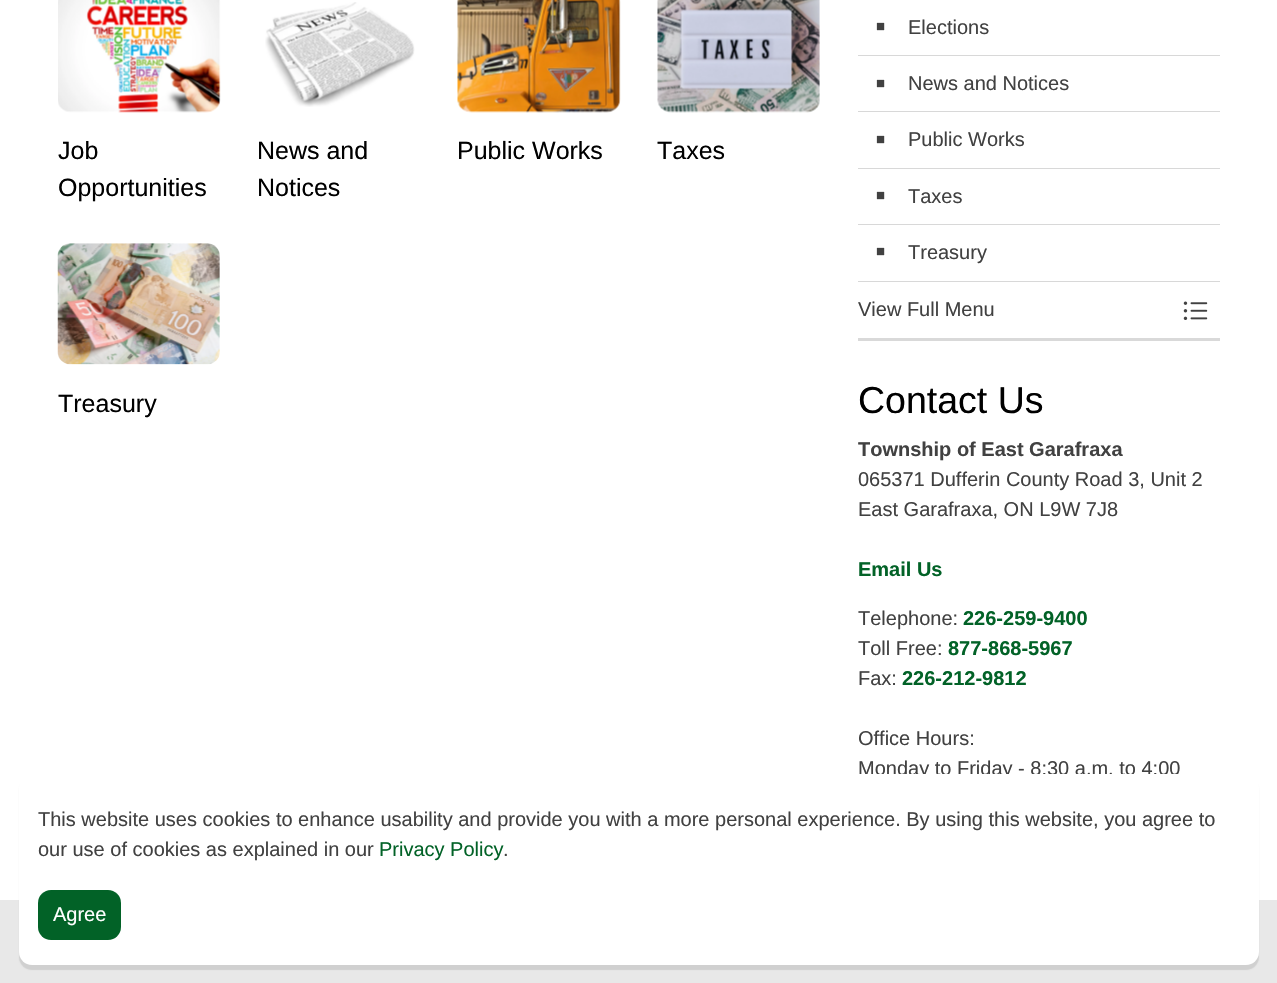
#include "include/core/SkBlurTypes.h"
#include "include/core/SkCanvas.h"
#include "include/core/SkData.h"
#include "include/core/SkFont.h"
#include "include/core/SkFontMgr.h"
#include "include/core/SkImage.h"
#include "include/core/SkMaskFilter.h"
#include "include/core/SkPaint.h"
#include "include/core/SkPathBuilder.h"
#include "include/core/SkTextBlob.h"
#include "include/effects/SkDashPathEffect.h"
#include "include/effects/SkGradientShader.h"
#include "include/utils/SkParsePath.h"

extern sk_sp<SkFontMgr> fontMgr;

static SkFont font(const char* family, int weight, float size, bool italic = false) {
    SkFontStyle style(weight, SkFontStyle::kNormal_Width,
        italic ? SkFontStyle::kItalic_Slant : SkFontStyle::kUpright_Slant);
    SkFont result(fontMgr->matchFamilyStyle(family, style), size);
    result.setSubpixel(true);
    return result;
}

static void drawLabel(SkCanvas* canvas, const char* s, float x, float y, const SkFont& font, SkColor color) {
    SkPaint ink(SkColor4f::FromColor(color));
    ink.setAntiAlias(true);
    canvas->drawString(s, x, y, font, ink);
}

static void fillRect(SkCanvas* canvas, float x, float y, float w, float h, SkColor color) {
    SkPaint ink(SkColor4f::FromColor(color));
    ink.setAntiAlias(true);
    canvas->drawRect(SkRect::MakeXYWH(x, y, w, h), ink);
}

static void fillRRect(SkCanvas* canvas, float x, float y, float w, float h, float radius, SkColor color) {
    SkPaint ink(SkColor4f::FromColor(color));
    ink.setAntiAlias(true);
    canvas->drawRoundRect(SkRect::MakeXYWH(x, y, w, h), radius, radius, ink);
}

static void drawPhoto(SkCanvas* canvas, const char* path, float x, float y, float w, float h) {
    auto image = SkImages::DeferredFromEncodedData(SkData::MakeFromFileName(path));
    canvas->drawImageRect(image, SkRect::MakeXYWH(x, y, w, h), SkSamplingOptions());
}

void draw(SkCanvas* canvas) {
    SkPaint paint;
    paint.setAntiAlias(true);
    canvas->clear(0xFFFFFFFF);
    drawPhoto(canvas, "assets/img1.png", 58, 0, 163, 113);
    SkFont font1 = font("Liberation Sans", 400, 25);
    drawLabel(canvas, "Job", 58, 159, font1, 0xFF000000);
    drawLabel(canvas, "Opportunities", 58, 196, font1, 0xFF000000);
    drawPhoto(canvas, "assets/img2.png", 265, 2, 150, 105);
    drawLabel(canvas, "News and", 257, 159, font1, 0xFF000000);
    drawLabel(canvas, "Notices", 257, 196, font1, 0xFF000000);
    drawPhoto(canvas, "assets/img3.png", 457, 0, 164, 113);
    drawLabel(canvas, "Public Works", 457, 159, font1, 0xFF000000);
    drawPhoto(canvas, "assets/img4.png", 657, 0, 163, 113);
    drawLabel(canvas, "Taxes", 657, 159, font1, 0xFF000000);
    drawPhoto(canvas, "assets/img5.png", 57, 243, 163, 122);
    drawLabel(canvas, "Treasury", 58, 412, font1, 0xFF000000);
    SkFont font2 = font("Liberation Sans", 400, 15);
    drawLabel(canvas, "■", 876, 31, font2, 0xFF414141);
    SkFont font3 = font("Liberation Sans", 400, 20);
    drawLabel(canvas, "Elections", 908, 34, font3, 0xFF414141);
    fillRect(canvas, 858, 55, 362, 1, 0xFFD8D8D8);
    drawLabel(canvas, "■", 876, 88, font2, 0xFF414141);
    drawLabel(canvas, "News and Notices", 908, 90, font3, 0xFF414141);
    fillRect(canvas, 858, 111, 362, 1, 0xFFD8D8D8);
    drawLabel(canvas, "■", 876, 144, font2, 0xFF414141);
    drawLabel(canvas, "Public Works", 908, 146, font3, 0xFF414141);
    fillRect(canvas, 858, 168, 362, 1, 0xFFD8D8D8);
    drawLabel(canvas, "■", 876, 200, font2, 0xFF414141);
    drawLabel(canvas, "Taxes", 908, 203, font3, 0xFF414141);
    fillRect(canvas, 858, 224, 362, 1, 0xFFD8D8D8);
    drawLabel(canvas, "■", 876, 256, font2, 0xFF414141);
    drawLabel(canvas, "Treasury", 908, 259, font3, 0xFF414141);
    fillRect(canvas, 858, 281, 362, 1, 0xFFD8D8D8);
    drawLabel(canvas, "View Full Menu", 858, 316, font3, 0xFF414141);
    drawPhoto(canvas, "assets/img6.png", 1183, 301, 25, 19);
    fillRect(canvas, 858, 338, 362, 3, 0xFFD9D9D9);
    SkFont font4 = font("Liberation Sans", 400, 37.5f);
    drawLabel(canvas, "Contact Us", 858, 413, font4, 0xFF000000);
    SkFont font5 = font("Liberation Sans", 700, 20);
    drawLabel(canvas, "Township of East Garafraxa", 858, 456, font5, 0xFF414141);
    drawLabel(canvas, "065371 Dufferin County Road 3, Unit 2", 858, 486, font3, 0xFF414141);
    drawLabel(canvas, "East Garafraxa, ON L9W 7J8", 858, 516, font3, 0xFF414141);
    drawLabel(canvas, "Email Us", 858, 576, font5, 0xFF026227);
    drawLabel(canvas, "Telephone:", 858, 625, font3, 0xFF414141);
    drawLabel(canvas, "226-259-9400", 963, 625, font5, 0xFF026227);
    drawLabel(canvas, "Toll Free:", 858, 655, font3, 0xFF414141);
    drawLabel(canvas, "877-868-5967", 948, 655, font5, 0xFF026227);
    drawLabel(canvas, "Fax:", 858, 685, font3, 0xFF414141);
    drawLabel(canvas, "226-212-9812", 902, 685, font5, 0xFF026227);
    drawLabel(canvas, "Office Hours:", 858, 745, font3, 0xFF414141);
    drawLabel(canvas, "Monday to Friday - 8:30 a.m. to 4:00", 858, 775, font3, 0xFF414141);
    fillRect(canvas, 0, 900, 1277, 83, 0xFFE8E8E8);
    paint.setColor(0x1A000000);
    paint.setMaskFilter(SkMaskFilter::MakeBlur(kNormal_SkBlurStyle, 0.5f));
    canvas->drawRoundRect(SkRect::MakeXYWH(19, 779, 1240, 191), 13, 13, paint);
    paint.setMaskFilter(nullptr);
    fillRRect(canvas, 19, 774, 1240, 191, 13, 0xFFFFFFFF);
    drawLabel(canvas, "This website uses cookies to enhance usability and provide you with a more personal experience. By using this website, you agree to", 38, 826, font3, 0xFF414141);
    drawLabel(canvas, "our use of cookies as explained in our", 38, 856, font3, 0xFF414141);
    drawLabel(canvas, "Privacy Policy", 379, 856, font3, 0xFF026227);
    drawLabel(canvas, ".", 503, 856, font3, 0xFF414141);
    fillRRect(canvas, 38, 890, 83, 50, 13, 0xFF026227);
    drawLabel(canvas, "Agree", 53, 921, font3, 0xFFFFFFFF);
}
